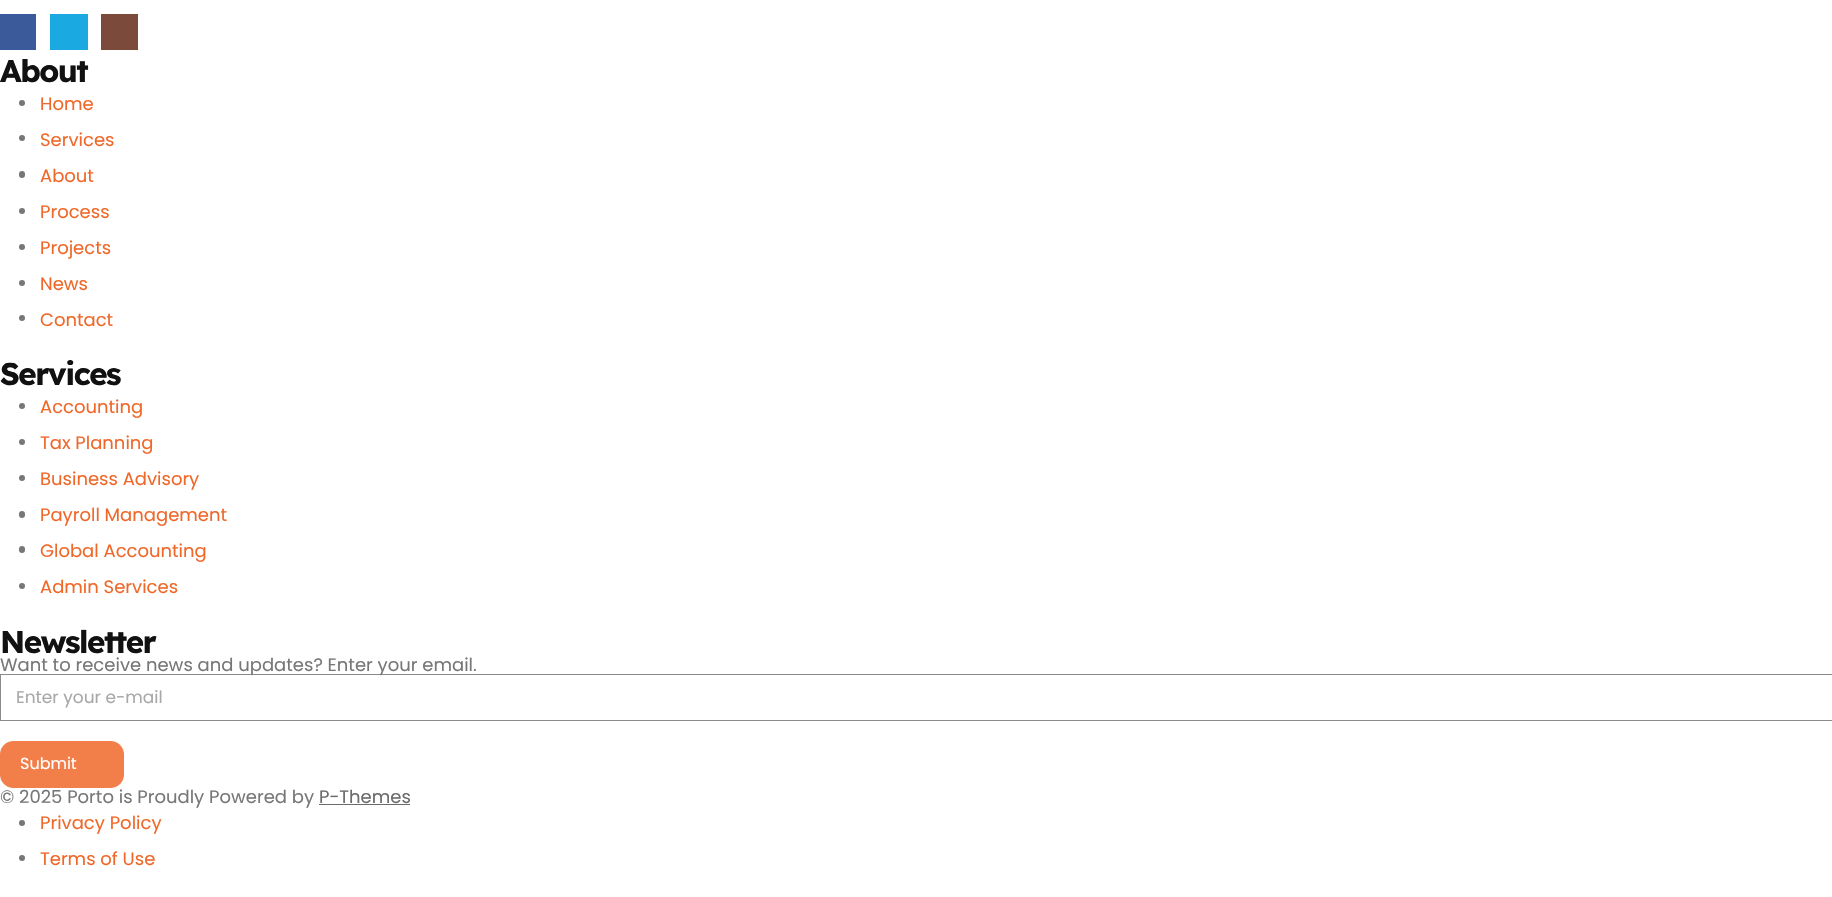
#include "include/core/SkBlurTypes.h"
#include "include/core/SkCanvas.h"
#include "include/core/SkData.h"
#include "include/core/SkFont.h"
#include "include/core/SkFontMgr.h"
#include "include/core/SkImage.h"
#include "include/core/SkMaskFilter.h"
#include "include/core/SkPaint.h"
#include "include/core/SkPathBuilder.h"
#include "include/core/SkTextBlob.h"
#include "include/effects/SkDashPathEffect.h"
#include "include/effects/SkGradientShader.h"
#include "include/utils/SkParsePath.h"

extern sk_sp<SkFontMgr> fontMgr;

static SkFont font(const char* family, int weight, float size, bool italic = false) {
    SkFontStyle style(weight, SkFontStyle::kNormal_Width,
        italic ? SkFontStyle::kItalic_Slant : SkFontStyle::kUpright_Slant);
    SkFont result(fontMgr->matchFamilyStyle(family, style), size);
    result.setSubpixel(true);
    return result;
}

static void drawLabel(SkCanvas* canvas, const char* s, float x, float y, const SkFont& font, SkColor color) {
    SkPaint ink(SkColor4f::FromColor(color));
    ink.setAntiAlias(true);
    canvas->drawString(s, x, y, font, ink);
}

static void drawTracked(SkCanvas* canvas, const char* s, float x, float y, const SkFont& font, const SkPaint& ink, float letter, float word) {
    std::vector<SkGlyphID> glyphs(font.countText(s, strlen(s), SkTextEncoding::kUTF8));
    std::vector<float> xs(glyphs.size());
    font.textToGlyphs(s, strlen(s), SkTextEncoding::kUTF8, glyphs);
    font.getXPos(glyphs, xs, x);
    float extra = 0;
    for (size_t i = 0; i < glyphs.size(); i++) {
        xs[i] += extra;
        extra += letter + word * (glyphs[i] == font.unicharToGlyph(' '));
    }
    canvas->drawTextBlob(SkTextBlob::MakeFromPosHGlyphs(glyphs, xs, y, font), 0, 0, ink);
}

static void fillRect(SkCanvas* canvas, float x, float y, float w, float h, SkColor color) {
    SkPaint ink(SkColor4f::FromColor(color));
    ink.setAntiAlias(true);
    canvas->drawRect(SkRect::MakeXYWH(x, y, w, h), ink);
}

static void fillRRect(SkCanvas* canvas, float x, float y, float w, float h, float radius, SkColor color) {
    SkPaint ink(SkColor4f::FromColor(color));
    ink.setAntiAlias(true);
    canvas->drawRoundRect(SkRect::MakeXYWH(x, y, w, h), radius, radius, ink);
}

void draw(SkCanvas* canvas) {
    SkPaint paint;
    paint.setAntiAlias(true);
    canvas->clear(0xFFFFFFFF);
    fillRect(canvas, 0, 14, 36, 36, 0xFF3B5A9A);
    fillRect(canvas, 50, 14, 38, 36, 0xFF1AA9E1);
    fillRect(canvas, 101, 14, 37, 36, 0xFF7C4A3A);
    SkFont font1 = font("Lexend", 700, 31.25f);
    paint.setColor(0xFF111111);
    drawTracked(canvas, "About", 0, 82, font1, paint, -1.5f, 0);
    paint.setColor(0xFF777777);
    canvas->drawCircle(22, 103, 3, paint);
    SkFont font2 = font("Poppins", 400, 18);
    drawLabel(canvas, "Home", 40, 110, font2, 0xFFF06829);
    canvas->drawCircle(22, 138, 3, paint);
    drawLabel(canvas, "Services", 40, 146, font2, 0xFFF06829);
    fillRRect(canvas, 19, 171, 6, 7, 3, 0xFF777777);
    drawLabel(canvas, "About", 40, 182, font2, 0xFFF06829);
    canvas->drawCircle(22, 211, 3, paint);
    drawLabel(canvas, "Process", 40, 218, font2, 0xFFF06829);
    canvas->drawCircle(22, 247, 3, paint);
    drawLabel(canvas, "Projects", 40, 254, font2, 0xFFF06829);
    canvas->drawCircle(22, 283, 3, paint);
    drawLabel(canvas, "News", 40, 290, font2, 0xFFF06829);
    canvas->drawCircle(22, 318, 3, paint);
    drawLabel(canvas, "Contact", 40, 326, font2, 0xFFF06829);
    paint.setColor(0xFF111111);
    drawTracked(canvas, "Services", 0, 385, font1, paint, -1.5f, 0);
    paint.setColor(0xFF777777);
    canvas->drawCircle(22, 406, 3, paint);
    drawLabel(canvas, "Accounting", 40, 413, font2, 0xFFF06829);
    canvas->drawCircle(22, 442, 3, paint);
    drawLabel(canvas, "Tax Planning", 40, 449, font2, 0xFFF06829);
    canvas->drawCircle(22, 478, 3, paint);
    drawLabel(canvas, "Business Advisory", 40, 485, font2, 0xFFF06829);
    fillRRect(canvas, 19, 511, 6, 7, 3, 0xFF777777);
    drawLabel(canvas, "Payroll Management", 40, 521, font2, 0xFFF06829);
    fillRRect(canvas, 19, 546, 6, 7, 3, 0xFF777777);
    drawLabel(canvas, "Global Accounting", 40, 557, font2, 0xFFF06829);
    canvas->drawCircle(22, 586, 3, paint);
    drawLabel(canvas, "Admin Services", 40, 593, font2, 0xFFF06829);
    paint.setColor(0xFF111111);
    drawTracked(canvas, "Newsletter", 0, 653, font1, paint, -1.5f, 0);
    drawLabel(canvas, "Want to receive news and updates? Enter your email.", 0, 671, font2, 0xFF777777);
    fillRect(canvas, 251, 675, 131, 1, 0xD9FFFFFF);
    paint.setStroke(true);
    paint.setStrokeWidth(1);
    paint.setColor(0xD9777777);
    canvas->drawRect(SkRect::MakeXYWH(0.5f, 674.5f, 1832, 46), paint);
    SkFont font3 = font("Poppins", 400, 17);
    drawLabel(canvas, "Enter your e-mail", 16, 703, font3, 0xFFA8A8A8);
    paint.setStroke(false);
    paint.setColor(0xFFF27F49);
    canvas->drawRoundRect(SkRect::MakeXYWH(0.5f, 741.5f, 123, 46), 12.5f, 12.5f, paint);
    paint.setStroke(true);
    canvas->drawRoundRect(SkRect::MakeXYWH(0.5f, 741.5f, 123, 46), 12.5f, 12.5f, paint);
    SkFont font4 = font("Poppins", 400, 16);
    drawLabel(canvas, "Submit", 20, 769, font4, 0xFFFFFFFF);
    drawLabel(canvas, "© 2025 Porto is Proudly Powered by", 0, 803, font2, 0xFF777777);
    drawLabel(canvas, "P-Themes", 319, 803, font2, 0xFF6C6B6B);
    fillRect(canvas, 319, 804, 91, 1, 0xFF6C6B6B);
    paint.setStroke(false);
    paint.setColor(0xFF777777);
    canvas->drawCircle(22, 823, 3, paint);
    drawLabel(canvas, "Privacy Policy", 40, 829, font2, 0xFFF06829);
    canvas->drawCircle(22, 858, 3, paint);
    drawLabel(canvas, "Terms of Use", 40, 865, font2, 0xFFF06829);
}
